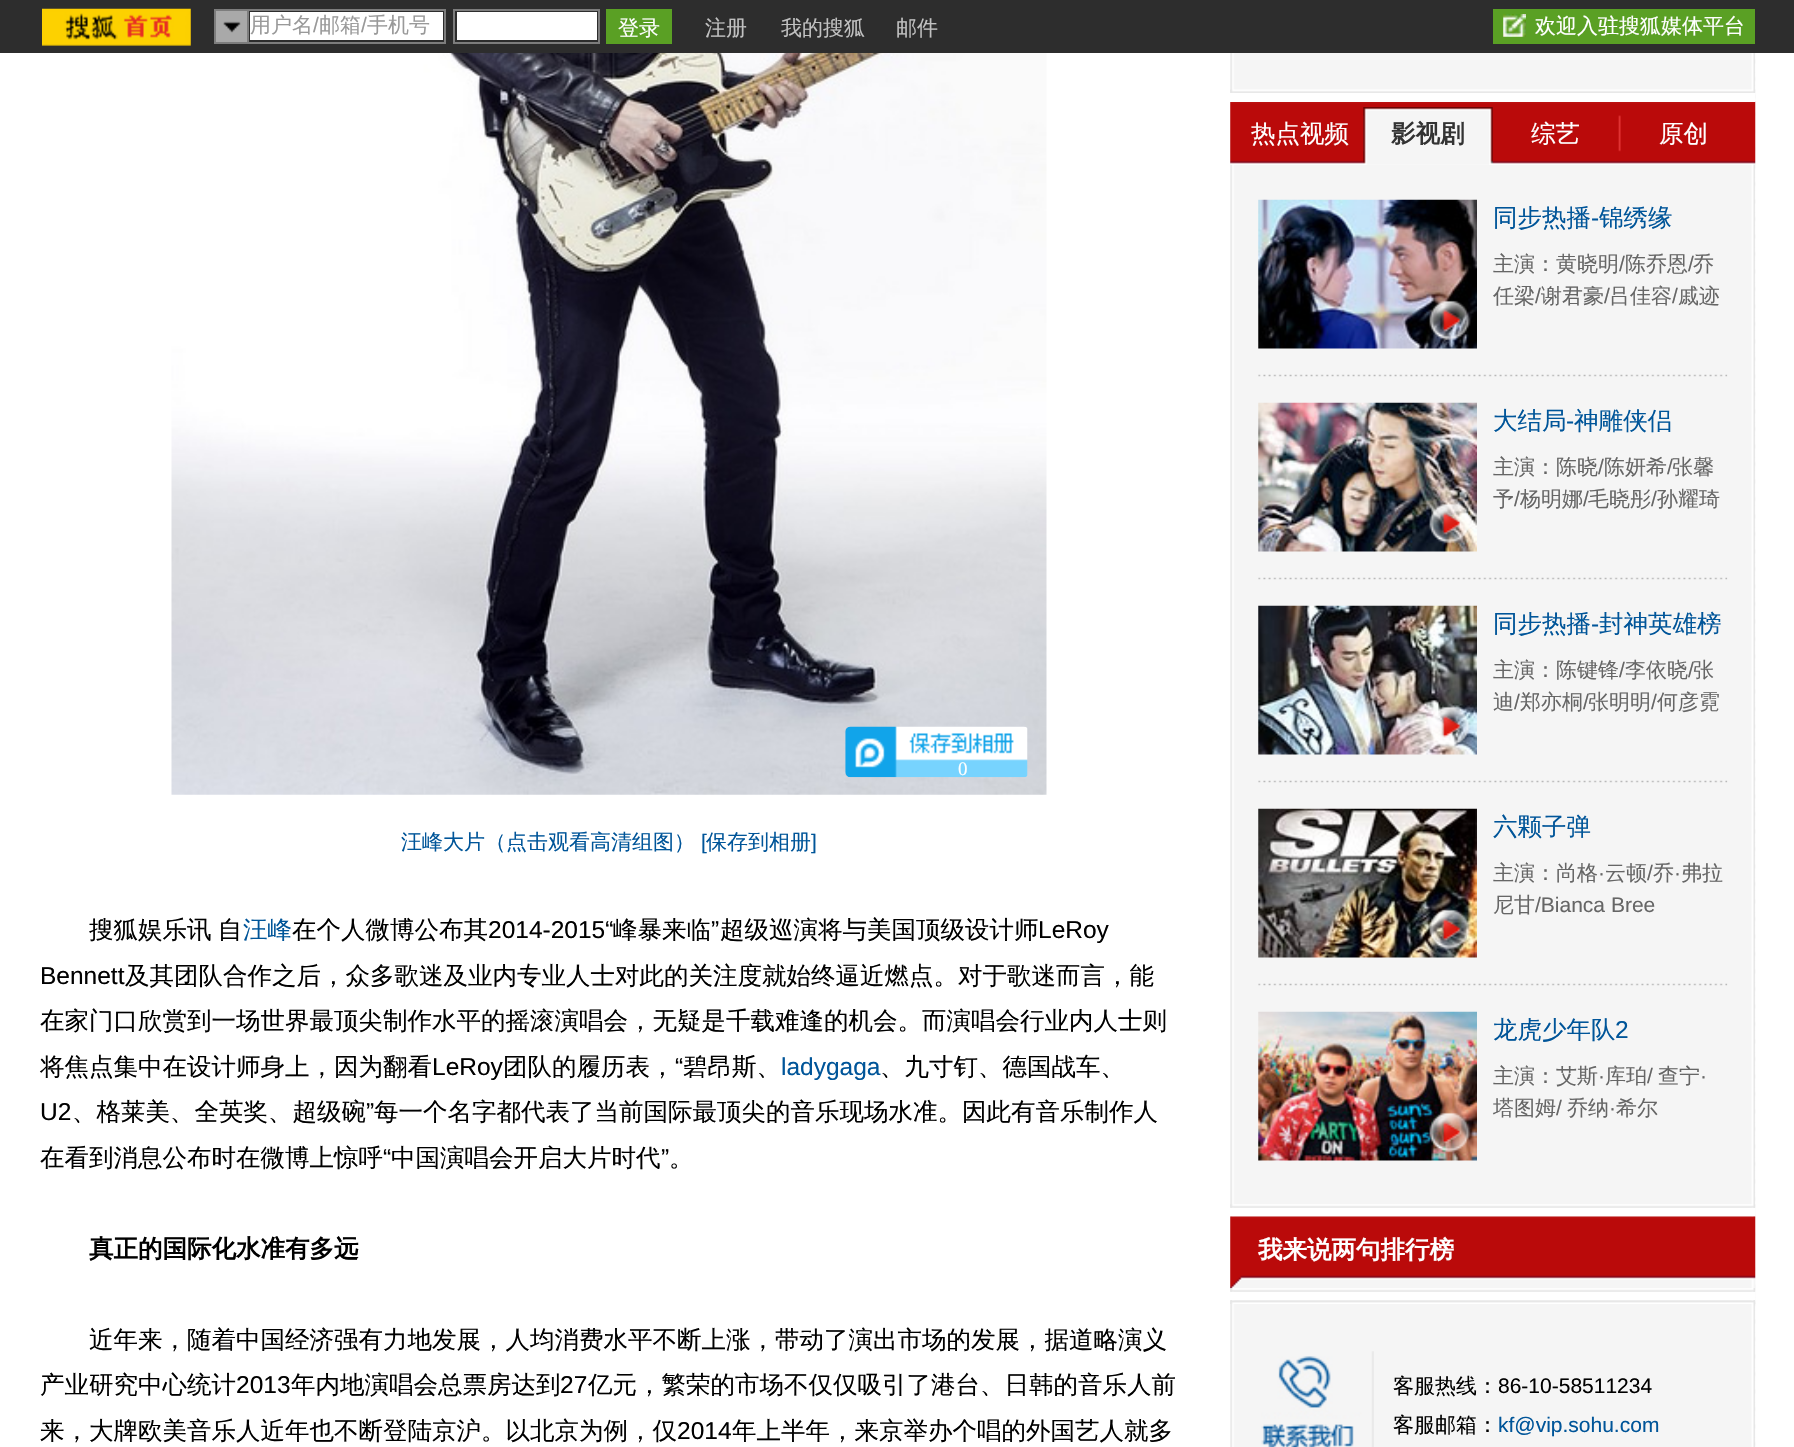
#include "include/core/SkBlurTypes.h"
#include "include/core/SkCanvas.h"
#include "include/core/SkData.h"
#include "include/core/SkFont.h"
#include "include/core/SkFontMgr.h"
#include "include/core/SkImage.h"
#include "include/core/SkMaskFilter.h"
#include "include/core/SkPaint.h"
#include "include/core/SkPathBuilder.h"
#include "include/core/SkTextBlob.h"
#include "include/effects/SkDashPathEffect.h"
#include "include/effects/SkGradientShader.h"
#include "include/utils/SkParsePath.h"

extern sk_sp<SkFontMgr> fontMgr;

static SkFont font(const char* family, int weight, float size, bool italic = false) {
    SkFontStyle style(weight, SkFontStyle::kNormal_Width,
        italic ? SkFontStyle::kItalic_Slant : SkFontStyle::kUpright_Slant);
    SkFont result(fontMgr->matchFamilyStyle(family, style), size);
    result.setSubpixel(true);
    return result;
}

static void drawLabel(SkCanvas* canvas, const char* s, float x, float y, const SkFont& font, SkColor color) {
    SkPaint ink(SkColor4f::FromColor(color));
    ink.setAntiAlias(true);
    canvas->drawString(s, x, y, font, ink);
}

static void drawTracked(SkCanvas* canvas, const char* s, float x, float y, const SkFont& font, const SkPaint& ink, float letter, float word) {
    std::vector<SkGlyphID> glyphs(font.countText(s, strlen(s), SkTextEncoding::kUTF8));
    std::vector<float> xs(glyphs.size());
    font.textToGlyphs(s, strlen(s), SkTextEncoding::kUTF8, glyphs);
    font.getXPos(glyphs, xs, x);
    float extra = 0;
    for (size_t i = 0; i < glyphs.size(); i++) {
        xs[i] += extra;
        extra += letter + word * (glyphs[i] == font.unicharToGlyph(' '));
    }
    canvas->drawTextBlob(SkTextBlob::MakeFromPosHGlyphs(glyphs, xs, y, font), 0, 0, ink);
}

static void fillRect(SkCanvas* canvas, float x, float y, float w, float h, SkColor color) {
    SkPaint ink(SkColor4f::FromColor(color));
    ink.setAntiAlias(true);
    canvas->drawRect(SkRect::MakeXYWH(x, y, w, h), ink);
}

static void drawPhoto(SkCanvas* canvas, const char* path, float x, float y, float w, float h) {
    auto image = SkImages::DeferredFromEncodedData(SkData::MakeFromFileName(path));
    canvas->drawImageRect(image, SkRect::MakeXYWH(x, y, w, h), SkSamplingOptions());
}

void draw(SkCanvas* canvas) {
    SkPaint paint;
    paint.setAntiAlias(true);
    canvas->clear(0xFFFFFFFF);
    fillRect(canvas, 0, 0, 1794, 53, 0xFF2D2D2D);
    drawPhoto(canvas, "assets/img1.png", 42, 8, 149, 38);
    fillRect(canvas, 216, 11, 31, 31, 0xFFA9A9A9);
    drawPhoto(canvas, "assets/img2.png", 223, 21, 18, 12);
    fillRect(canvas, 214, 9, 33, 2, 0xFF7D7D7D);
    fillRect(canvas, 214, 42, 33, 2, 0xFF7D7D7D);
    fillRect(canvas, 214, 9, 2, 35, 0xFF7D7D7D);
    paint.setStroke(true);
    paint.setStrokeWidth(2);
    paint.setColor(0xFF7D7D7D);
    canvas->drawRect(SkRect::MakeXYWH(248, 10, 197, 33), paint);
    fillRect(canvas, 250, 12, 193, 28, 0xFFFFFFFF);
    SkFont font1 = font("WenQuanYi Zen Hei", 500, 21);
    drawLabel(canvas, "用户名", 250, 32, font1, 0xFF999999);
    SkFont font2 = font("Liberation Sans", 400, 21);
    drawLabel(canvas, "/", 313, 32, font2, 0xFF999999);
    drawLabel(canvas, "邮箱", 319, 32, font1, 0xFF999999);
    drawLabel(canvas, "/", 361, 32, font2, 0xFF999999);
    drawLabel(canvas, "手机号", 367, 32, font1, 0xFF999999);
    canvas->drawRect(SkRect::MakeXYWH(454, 10, 145, 33), paint);
    fillRect(canvas, 457, 12, 140, 28, 0xFFFFFFFF);
    fillRect(canvas, 606, 9, 66, 35, 0xFF5AA024);
    drawLabel(canvas, "登录", 618, 35, font1, 0xFFFFFFFF);
    drawLabel(canvas, "注册", 705, 35, font1, 0xFFC1C1C1);
    drawLabel(canvas, "我的搜狐", 781, 35, font1, 0xFFC1C1C1);
    drawLabel(canvas, "邮件", 896, 35, font1, 0xFFC1C1C1);
    fillRect(canvas, 1493, 9, 262, 35, 0xFF5AA024);
    drawPhoto(canvas, "assets/img3.png", 1503, 14, 23, 23);
    drawLabel(canvas, "欢迎入驻搜狐媒体平台", 1535, 33, font1, 0xFFFFFFFF);
    drawPhoto(canvas, "assets/img4.png", 1230, 53, 526, 1394);
    drawPhoto(canvas, "assets/img5.png", 171, 53, 876, 742);
    drawPhoto(canvas, "assets/img6.png", 845, 726, 183, 52);
    SkFont font3 = font("Liberation Serif", 400, 19);
    drawLabel(canvas, "0", 958, 775, font3, 0xFFFFFFFF);
    drawLabel(canvas, "汪峰大片（点击观看高清组图）", 401, 849, font1, 0xFF005599);
    drawLabel(canvas, "[", 701, 849, font2, 0xFF005599);
    drawLabel(canvas, "保存到相册", 706, 849, font1, 0xFF005599);
    drawLabel(canvas, "]", 811, 849, font2, 0xFF005599);
    SkFont font4 = font("WenQuanYi Zen Hei", 500, 24.5f);
    paint.setStroke(false);
    paint.setColor(0xFF000000);
    drawTracked(canvas, "搜狐娱乐讯 自", 89, 938, font4, paint, 0, -1);
    drawLabel(canvas, "汪峰", 243, 938, font4, 0xFF005599);
    drawLabel(canvas, "在个人微博公布其", 292, 938, font4, 0xFF000000);
    SkFont font5 = font("Liberation Sans", 400, 24.5f);
    drawLabel(canvas, "2014-2015“", 488, 938, font5, 0xFF000000);
    drawLabel(canvas, "峰暴来临", 613, 938, font4, 0xFF000000);
    drawLabel(canvas, "”", 711, 938, font5, 0xFF000000);
    drawLabel(canvas, "超级巡演将与美国顶级设计师", 720, 938, font4, 0xFF000000);
    drawLabel(canvas, "LeRoy", 1038, 938, font5, 0xFF000000);
    drawLabel(canvas, "Bennett", 40, 984, font5, 0xFF000000);
    drawLabel(canvas, "及其团队合作之后，众多歌迷及业内专业人士对此的关注度就始终逼近燃点。对于歌迷而言，能", 125, 984, font4, 0xFF000000);
    drawLabel(canvas, "在家门口欣赏到一场世界最顶尖制作水平的摇滚演唱会，无疑是千载难逢的机会。而演唱会行业内人士则", 40, 1029, font4, 0xFF000000);
    drawLabel(canvas, "将焦点集中在设计师身上，因为翻看", 40, 1075, font4, 0xFF000000);
    drawLabel(canvas, "LeRoy", 432, 1075, font5, 0xFF000000);
    drawLabel(canvas, "团队的履历表，", 503, 1075, font4, 0xFF000000);
    drawLabel(canvas, "“", 675, 1075, font5, 0xFF000000);
    drawLabel(canvas, "碧昂斯、", 683, 1075, font4, 0xFF000000);
    drawLabel(canvas, "ladygaga", 781, 1075, font5, 0xFF005599);
    drawLabel(canvas, "、九寸钉、德国战车、", 880, 1075, font4, 0xFF000000);
    drawLabel(canvas, "U2", 40, 1120, font5, 0xFF000000);
    drawLabel(canvas, "、格莱美、全英奖、超级碗", 72, 1120, font4, 0xFF000000);
    drawLabel(canvas, "”", 366, 1120, font5, 0xFF000000);
    drawLabel(canvas, "每一个名字都代表了当前国际最顶尖的音乐现场水准。因此有音乐制作人", 374, 1120, font4, 0xFF000000);
    drawLabel(canvas, "在看到消息公布时在微博上惊呼", 40, 1166, font4, 0xFF000000);
    drawLabel(canvas, "“", 383, 1166, font5, 0xFF000000);
    drawLabel(canvas, "中国演唱会开启大片时代", 391, 1166, font4, 0xFF000000);
    drawLabel(canvas, "”", 661, 1166, font5, 0xFF000000);
    drawLabel(canvas, "。", 669, 1166, font4, 0xFF000000);
    SkFont font6 = font("WenQuanYi Zen Hei", 700, 24.5f);
    drawLabel(canvas, "真正的国际化水准有多远", 89, 1257, font6, 0xFF000000);
    drawLabel(canvas, "近年来，随着中国经济强有力地发展，人均消费水平不断上涨，带动了演出市场的发展，据道略演义", 89, 1348, font4, 0xFF000000);
    drawLabel(canvas, "产业研究中心统计", 40, 1393, font4, 0xFF000000);
    drawLabel(canvas, "2013", 236, 1393, font5, 0xFF000000);
    drawLabel(canvas, "年内地演唱会总票房达到", 291, 1393, font4, 0xFF000000);
    drawLabel(canvas, "27", 560, 1393, font5, 0xFF000000);
    drawLabel(canvas, "亿元，繁荣的市场不仅仅吸引了港台、日韩的音乐人前", 588, 1393, font4, 0xFF000000);
    drawLabel(canvas, "来，大牌欧美音乐人近年也不断登陆京沪。以北京为例，仅", 40, 1439, font4, 0xFF000000);
    drawLabel(canvas, "2014", 677, 1439, font5, 0xFF000000);
    drawLabel(canvas, "年上半年，来京举办个唱的外国艺人就多", 732, 1439, font4, 0xFF000000);
    drawPhoto(canvas, "assets/img7.png", 1230, 89, 526, 5);
    drawPhoto(canvas, "assets/img8.png", 1230, 101, 526, 64);
    fillRect(canvas, 1230, 93, 525, 9, 0xFFFFFFFF);
    drawPhoto(canvas, "assets/img9.png", 1363, 115, 1, 37);
    drawLabel(canvas, "热点视频", 1251, 142, font4, 0xFFFFFFFF);
    drawPhoto(canvas, "assets/img10.png", 1363, 107, 130, 58);
    drawLabel(canvas, "影视剧", 1391, 142, font6, 0xFF333333);
    drawPhoto(canvas, "assets/img11.png", 1618, 115, 3, 37);
    drawLabel(canvas, "综艺", 1531, 142, font4, 0xFFFFFFFF);
    drawLabel(canvas, "原创", 1659, 142, font4, 0xFFFFFFFF);
    drawPhoto(canvas, "assets/img12.png", 1258, 199, 219, 150);
    drawPhoto(canvas, "assets/img13.png", 1429, 300, 42, 41);
    drawLabel(canvas, "同步热播", 1493, 226, font4, 0xFF005599);
    drawLabel(canvas, "-", 1591, 226, font5, 0xFF005599);
    drawLabel(canvas, "锦绣缘", 1599, 226, font4, 0xFF005599);
    drawLabel(canvas, "主演：黄晓明", 1493, 271, font1, 0xFF666666);
    drawLabel(canvas, "/", 1619, 271, font2, 0xFF666666);
    drawLabel(canvas, "陈乔恩", 1625, 271, font1, 0xFF666666);
    drawLabel(canvas, "/", 1688, 271, font2, 0xFF666666);
    drawLabel(canvas, "乔", 1693, 271, font1, 0xFF666666);
    drawLabel(canvas, "任梁", 1493, 303, font1, 0xFF666666);
    drawLabel(canvas, "/", 1535, 303, font2, 0xFF666666);
    drawLabel(canvas, "谢君豪", 1541, 303, font1, 0xFF666666);
    drawLabel(canvas, "/", 1604, 303, font2, 0xFF666666);
    drawLabel(canvas, "吕佳容", 1609, 303, font1, 0xFF666666);
    drawLabel(canvas, "/", 1672, 303, font2, 0xFF666666);
    drawLabel(canvas, "戚迹", 1678, 303, font1, 0xFF666666);
    drawPhoto(canvas, "assets/img14.png", 1258, 374, 470, 3);
    drawPhoto(canvas, "assets/img15.png", 1258, 402, 219, 150);
    drawPhoto(canvas, "assets/img16.png", 1429, 503, 40, 41);
    drawLabel(canvas, "大结局", 1493, 429, font4, 0xFF005599);
    drawLabel(canvas, "-", 1566, 429, font5, 0xFF005599);
    drawLabel(canvas, "神雕侠侣", 1574, 429, font4, 0xFF005599);
    drawLabel(canvas, "主演：陈晓", 1493, 474, font1, 0xFF666666);
    drawLabel(canvas, "/", 1598, 474, font2, 0xFF666666);
    drawLabel(canvas, "陈妍希", 1604, 474, font1, 0xFF666666);
    drawLabel(canvas, "/", 1667, 474, font2, 0xFF666666);
    drawLabel(canvas, "张馨", 1672, 474, font1, 0xFF666666);
    drawLabel(canvas, "予", 1493, 506, font1, 0xFF666666);
    drawLabel(canvas, "/", 1514, 506, font2, 0xFF666666);
    drawLabel(canvas, "杨明娜", 1520, 506, font1, 0xFF666666);
    drawLabel(canvas, "/", 1583, 506, font2, 0xFF666666);
    drawLabel(canvas, "毛晓彤", 1588, 506, font1, 0xFF666666);
    drawLabel(canvas, "/", 1651, 506, font2, 0xFF666666);
    drawLabel(canvas, "孙耀琦", 1657, 506, font1, 0xFF666666);
    drawPhoto(canvas, "assets/img14.png", 1258, 577, 470, 3);
    drawPhoto(canvas, "assets/img17.png", 1258, 605, 219, 150);
    drawPhoto(canvas, "assets/img18.png", 1429, 706, 41, 41);
    drawLabel(canvas, "同步热播", 1493, 632, font4, 0xFF005599);
    drawLabel(canvas, "-", 1591, 632, font5, 0xFF005599);
    drawLabel(canvas, "封神英雄榜", 1599, 632, font4, 0xFF005599);
    drawLabel(canvas, "主演：陈键锋", 1493, 677, font1, 0xFF666666);
    drawLabel(canvas, "/", 1619, 677, font2, 0xFF666666);
    drawLabel(canvas, "李依晓", 1625, 677, font1, 0xFF666666);
    drawLabel(canvas, "/", 1688, 677, font2, 0xFF666666);
    drawLabel(canvas, "张", 1693, 677, font1, 0xFF666666);
    drawLabel(canvas, "迪", 1493, 709, font1, 0xFF666666);
    drawLabel(canvas, "/", 1514, 709, font2, 0xFF666666);
    drawLabel(canvas, "郑亦桐", 1520, 709, font1, 0xFF666666);
    drawLabel(canvas, "/", 1583, 709, font2, 0xFF666666);
    drawLabel(canvas, "张明明", 1588, 709, font1, 0xFF666666);
    drawLabel(canvas, "/", 1651, 709, font2, 0xFF666666);
    drawLabel(canvas, "何彦霓", 1657, 709, font1, 0xFF666666);
    drawPhoto(canvas, "assets/img14.png", 1258, 780, 470, 3);
    drawPhoto(canvas, "assets/img19.png", 1258, 808, 219, 150);
    drawPhoto(canvas, "assets/img20.png", 1429, 909, 42, 41);
    drawLabel(canvas, "六颗子弹", 1493, 835, font4, 0xFF005599);
    drawLabel(canvas, "主演：尚格", 1493, 880, font1, 0xFF666666);
    drawLabel(canvas, "·", 1598, 880, font2, 0xFF666666);
    drawLabel(canvas, "云顿", 1605, 880, font1, 0xFF666666);
    drawLabel(canvas, "/", 1647, 880, font2, 0xFF666666);
    drawLabel(canvas, "乔", 1653, 880, font1, 0xFF666666);
    drawLabel(canvas, "·", 1674, 880, font2, 0xFF666666);
    drawLabel(canvas, "弗拉", 1681, 880, font1, 0xFF666666);
    drawLabel(canvas, "尼甘", 1493, 912, font1, 0xFF666666);
    drawLabel(canvas, "/Bianca Bree", 1535, 912, font2, 0xFF666666);
    drawPhoto(canvas, "assets/img14.png", 1258, 983, 470, 3);
    drawPhoto(canvas, "assets/img21.png", 1258, 1011, 219, 150);
    drawPhoto(canvas, "assets/img22.png", 1429, 1112, 42, 41);
    drawLabel(canvas, "龙虎少年队", 1493, 1038, font4, 0xFF005599);
    drawLabel(canvas, "2", 1615, 1038, font5, 0xFF005599);
    drawLabel(canvas, "主演：艾斯", 1493, 1083, font1, 0xFF666666);
    drawLabel(canvas, "·", 1598, 1083, font2, 0xFF666666);
    drawLabel(canvas, "库珀", 1605, 1083, font1, 0xFF666666);
    drawLabel(canvas, "/", 1647, 1083, font2, 0xFF666666);
    drawLabel(canvas, "查宁", 1658, 1083, font1, 0xFF666666);
    drawLabel(canvas, "·", 1700, 1083, font2, 0xFF666666);
    drawLabel(canvas, "塔图姆", 1493, 1115, font1, 0xFF666666);
    drawLabel(canvas, "/", 1556, 1115, font2, 0xFF666666);
    drawLabel(canvas, "乔纳", 1567, 1115, font1, 0xFF666666);
    drawLabel(canvas, "·", 1609, 1115, font2, 0xFF666666);
    drawLabel(canvas, "希尔", 1616, 1115, font1, 0xFF666666);
    drawPhoto(canvas, "assets/img23.png", 1230, 1204, 526, 4);
    fillRect(canvas, 1230, 1208, 525, 8, 0xFFFFFFFF);
    drawPhoto(canvas, "assets/img24.png", 1230, 1216, 526, 73);
    drawLabel(canvas, "我来说两句排行榜", 1258, 1258, font6, 0xFFFFFFFF);
    drawPhoto(canvas, "assets/img25.png", 1230, 1288, 526, 4);
    fillRect(canvas, 1230, 1292, 525, 8, 0xFFFFFFFF);
    drawPhoto(canvas, "assets/img26.png", 1230, 1300, 526, 4);
    drawPhoto(canvas, "assets/img27.png", 1261, 1351, 113, 96);
    drawLabel(canvas, "客服热线：", 1393, 1393, font1, 0xFF000000);
    drawLabel(canvas, "86-10-58511234", 1498, 1393, font2, 0xFF000000);
    drawLabel(canvas, "客服邮箱：", 1393, 1432, font1, 0xFF000000);
    drawLabel(canvas, "kf@vip.sohu.com", 1498, 1432, font2, 0xFF005599);
}
